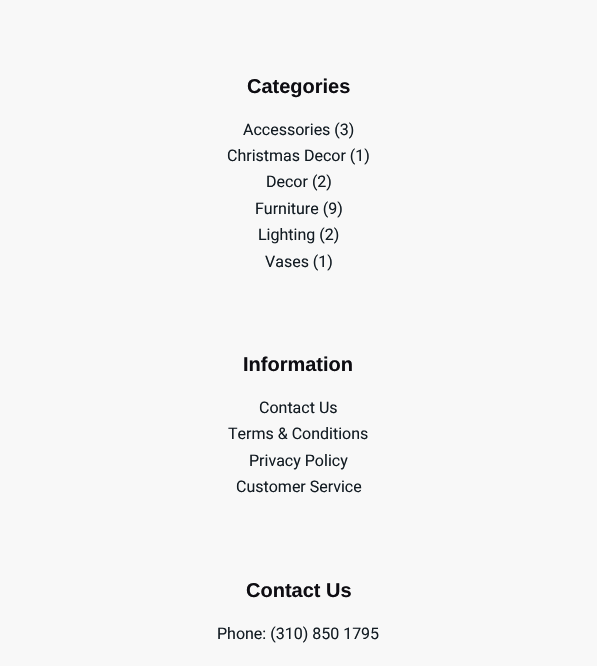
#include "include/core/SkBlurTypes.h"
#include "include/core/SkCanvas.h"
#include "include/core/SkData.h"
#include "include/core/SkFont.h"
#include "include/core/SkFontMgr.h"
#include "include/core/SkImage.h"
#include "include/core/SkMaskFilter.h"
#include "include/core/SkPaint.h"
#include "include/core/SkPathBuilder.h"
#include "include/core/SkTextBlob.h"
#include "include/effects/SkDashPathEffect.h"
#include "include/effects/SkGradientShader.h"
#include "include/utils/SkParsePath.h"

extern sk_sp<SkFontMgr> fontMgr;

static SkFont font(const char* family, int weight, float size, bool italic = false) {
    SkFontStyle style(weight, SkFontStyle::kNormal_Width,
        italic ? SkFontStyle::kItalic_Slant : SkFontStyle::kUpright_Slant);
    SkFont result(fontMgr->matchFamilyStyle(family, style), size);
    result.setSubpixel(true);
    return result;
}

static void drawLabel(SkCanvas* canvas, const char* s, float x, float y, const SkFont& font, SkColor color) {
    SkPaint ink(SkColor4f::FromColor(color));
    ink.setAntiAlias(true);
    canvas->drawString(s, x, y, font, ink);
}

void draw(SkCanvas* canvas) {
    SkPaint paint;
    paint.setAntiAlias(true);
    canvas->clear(0xFFF8F8F8);
    SkFont font1 = font("Liberation Sans", 700, 20);
    drawLabel(canvas, "Categories", 247, 93, font1, 0xFF0E0D12);
    SkFont font2 = font("Roboto", 400, 16);
    drawLabel(canvas, "Accessories (3)", 243, 135, font2, 0xFF131C23);
    drawLabel(canvas, "Christmas Decor (1)", 227, 161, font2, 0xFF131C23);
    drawLabel(canvas, "Decor (2)", 266, 187, font2, 0xFF131C23);
    drawLabel(canvas, "Furniture (9)", 255, 214, font2, 0xFF131C23);
    drawLabel(canvas, "Lighting (2)", 258, 240, font2, 0xFF131C23);
    drawLabel(canvas, "Vases (1)", 265, 267, font2, 0xFF131C23);
    drawLabel(canvas, "Information", 243, 371, font1, 0xFF0E0D12);
    drawLabel(canvas, "Contact Us", 259, 413, font2, 0xFF131C23);
    drawLabel(canvas, "Terms & Conditions", 228, 439, font2, 0xFF131C23);
    drawLabel(canvas, "Privacy Policy", 249, 466, font2, 0xFF131C23);
    drawLabel(canvas, "Customer Service", 236, 492, font2, 0xFF131C23);
    drawLabel(canvas, "Contact Us", 246, 597, font1, 0xFF0E0D12);
    drawLabel(canvas, "Phone: (310) 850 1795", 217, 639, font2, 0xFF131C23);
}
